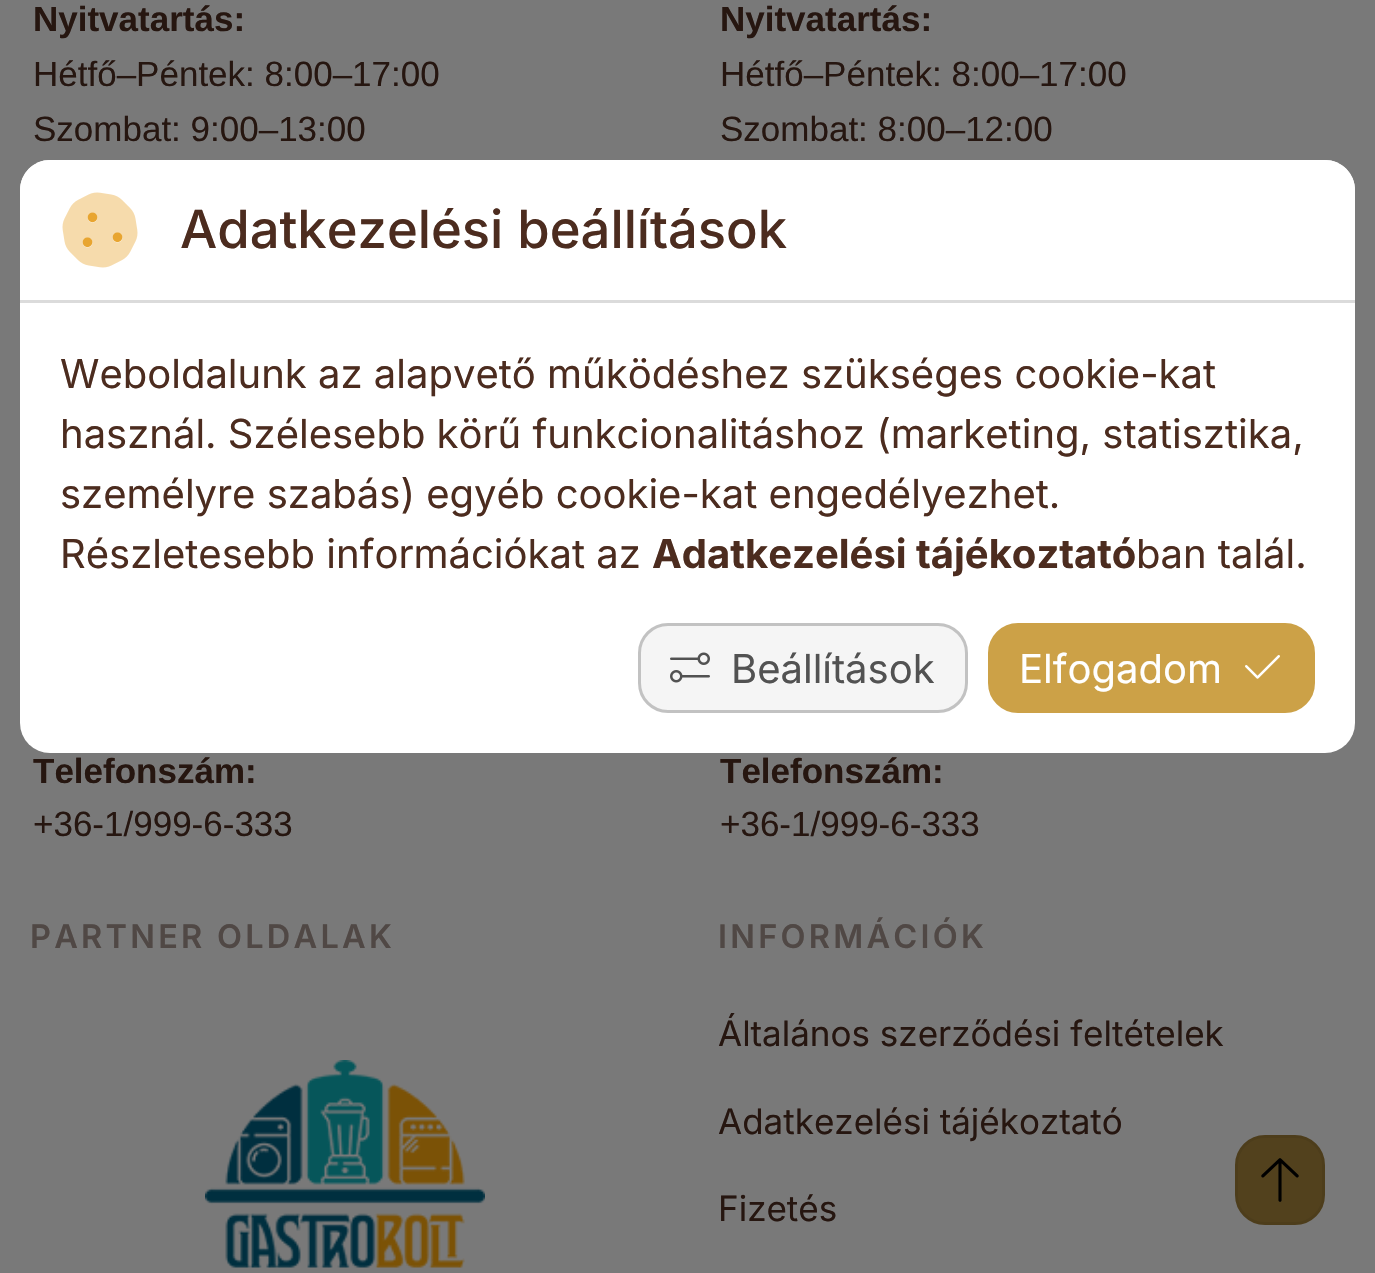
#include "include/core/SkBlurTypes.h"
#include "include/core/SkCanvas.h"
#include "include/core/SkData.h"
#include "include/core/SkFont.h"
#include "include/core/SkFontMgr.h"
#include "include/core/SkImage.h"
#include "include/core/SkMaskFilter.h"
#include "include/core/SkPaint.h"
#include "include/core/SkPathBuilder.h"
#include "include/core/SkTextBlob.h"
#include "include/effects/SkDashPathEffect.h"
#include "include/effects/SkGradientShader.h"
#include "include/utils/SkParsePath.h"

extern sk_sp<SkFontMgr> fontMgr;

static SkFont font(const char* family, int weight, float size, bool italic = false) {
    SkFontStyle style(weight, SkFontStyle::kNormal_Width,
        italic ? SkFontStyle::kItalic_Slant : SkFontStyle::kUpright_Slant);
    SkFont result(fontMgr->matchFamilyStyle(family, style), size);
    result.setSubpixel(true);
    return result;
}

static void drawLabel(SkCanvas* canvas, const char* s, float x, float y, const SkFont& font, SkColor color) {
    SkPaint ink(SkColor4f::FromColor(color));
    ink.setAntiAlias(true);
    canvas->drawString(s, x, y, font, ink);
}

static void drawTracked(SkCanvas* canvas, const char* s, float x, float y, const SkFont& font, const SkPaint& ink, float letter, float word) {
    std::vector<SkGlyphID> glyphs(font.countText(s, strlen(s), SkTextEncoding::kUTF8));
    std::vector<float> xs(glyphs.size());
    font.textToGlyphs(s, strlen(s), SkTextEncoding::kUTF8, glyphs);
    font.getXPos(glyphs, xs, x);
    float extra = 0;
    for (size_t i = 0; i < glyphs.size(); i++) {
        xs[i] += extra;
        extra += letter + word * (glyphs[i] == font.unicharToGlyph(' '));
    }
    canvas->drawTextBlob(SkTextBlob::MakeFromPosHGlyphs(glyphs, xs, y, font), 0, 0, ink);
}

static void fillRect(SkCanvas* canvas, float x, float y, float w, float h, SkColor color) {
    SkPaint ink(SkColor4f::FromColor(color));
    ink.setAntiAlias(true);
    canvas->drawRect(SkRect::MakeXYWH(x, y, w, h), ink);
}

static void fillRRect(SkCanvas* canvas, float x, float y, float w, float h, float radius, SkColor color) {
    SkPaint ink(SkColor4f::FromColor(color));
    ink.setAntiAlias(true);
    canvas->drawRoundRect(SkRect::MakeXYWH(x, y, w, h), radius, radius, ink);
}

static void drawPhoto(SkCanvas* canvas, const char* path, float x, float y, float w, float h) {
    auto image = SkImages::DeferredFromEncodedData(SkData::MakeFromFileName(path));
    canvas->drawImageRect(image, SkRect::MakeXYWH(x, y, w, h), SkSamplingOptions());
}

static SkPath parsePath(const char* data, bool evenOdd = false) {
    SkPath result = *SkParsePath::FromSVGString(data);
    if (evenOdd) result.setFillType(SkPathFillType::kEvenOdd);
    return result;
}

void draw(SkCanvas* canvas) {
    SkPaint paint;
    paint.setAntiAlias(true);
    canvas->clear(0xFF797979);
    SkFont font1 = font("Liberation Sans", 700, 35);
    drawLabel(canvas, "Nyitvatartás:", 33, 31, font1, 0xFF261610);
    SkFont font2 = font("Liberation Sans", 400, 35);
    drawLabel(canvas, "Hétfő–Péntek: 8:00–17:00", 33, 86, font2, 0xFF261610);
    drawLabel(canvas, "Szombat: 9:00–13:00", 33, 141, font2, 0xFF261610);
    drawLabel(canvas, "Telefonszám:", 33, 783, font1, 0xFF261610);
    drawLabel(canvas, "+36-1/999-6-333", 33, 836, font2, 0xFF261610);
    drawLabel(canvas, "Nyitvatartás:", 720, 31, font1, 0xFF261610);
    drawLabel(canvas, "Hétfő–Péntek: 8:00–17:00", 720, 86, font2, 0xFF261610);
    drawLabel(canvas, "Szombat: 8:00–12:00", 720, 141, font2, 0xFF261610);
    drawLabel(canvas, "Telefonszám:", 720, 783, font1, 0xFF261610);
    drawLabel(canvas, "+36-1/999-6-333", 720, 836, font2, 0xFF261610);
    SkFont font3 = font("Inter", 600, 32.5f);
    paint.setColor(0xFF504845);
    drawTracked(canvas, "PARTNER OLDALAK", 30, 948, font3, paint, 3.25f, 0);
    drawPhoto(canvas, "assets/img1.png", 205, 1060, 280, 208);
    drawTracked(canvas, "INFORMÁCIÓK", 718, 948, font3, paint, 3.25f, 0);
    SkFont font4 = font("Inter", 400, 35);
    drawLabel(canvas, "Általános szerződési feltételek", 718, 1046, font4, 0xFF261610);
    drawLabel(canvas, "Adatkezelési tájékoztató", 718, 1134, font4, 0xFF261610);
    drawLabel(canvas, "Fizetés", 718, 1221, font4, 0xFF261610);
    fillRRect(canvas, 20, 160, 1335, 593, 30, 0xFFFFFFFF);
    paint.setColor(0xFFFFFFFF);
    canvas->drawPath(parsePath("M50 160H1325C1341.5 160 1355 173.5 1355 190V303H20V190C20 173.5 33.5 160 50 160Z"), paint);
    fillRect(canvas, 20, 300, 1335, 3, 0xFFDBDBDB);
    drawPhoto(canvas, "assets/img2.png", 62, 192, 76, 76);
    SkFont font5 = font("Inter", 500, 52.5f);
    drawLabel(canvas, "Adatkezelési beállítások", 180, 248, font5, 0xFF4C2C1F);
    SkFont font6 = font("Inter", 400, 40);
    drawLabel(canvas, "Weboldalunk az alapvető működéshez szükséges cookie-kat", 60, 388, font6, 0xFF4C2C1F);
    drawLabel(canvas, "használ. Szélesebb körű funkcionalitáshoz (marketing, statisztika,", 60, 448, font6, 0xFF4C2C1F);
    drawLabel(canvas, "személyre szabás) egyéb cookie-kat engedélyezhet.", 60, 508, font6, 0xFF4C2C1F);
    drawLabel(canvas, "Részletesebb információkat az", 60, 568, font6, 0xFF4C2C1F);
    SkFont font7 = font("Inter", 700, 40);
    drawLabel(canvas, "Adatkezelési tájékoztató", 652, 568, font7, 0xFF4C2C1F);
    drawLabel(canvas, "ban talál.", 1136, 568, font6, 0xFF4C2C1F);
    paint.setColor(0xFFF5F5F5);
    canvas->drawRoundRect(SkRect::MakeXYWH(639.5f, 624.5f, 327, 87), 28.5f, 28.5f, paint);
    paint.setStroke(true);
    paint.setStrokeWidth(3);
    paint.setColor(0xFFC2C2C2);
    canvas->drawRoundRect(SkRect::MakeXYWH(639.5f, 624.5f, 327, 87), 28.5f, 28.5f, paint);
    drawPhoto(canvas, "assets/img3.png", 670, 652, 40, 31);
    drawLabel(canvas, "Beállítások", 731, 683, font6, 0xFF525252);
    paint.setStroke(false);
    paint.setColor(0xFFCCA147);
    canvas->drawRoundRect(SkRect::MakeXYWH(989.5f, 624.5f, 324, 87), 28.5f, 28.5f, paint);
    paint.setStroke(true);
    canvas->drawRoundRect(SkRect::MakeXYWH(989.5f, 624.5f, 324, 87), 28.5f, 28.5f, paint);
    drawLabel(canvas, "Elfogadom", 1019, 683, font6, 0xFFFFFFFF);
    drawPhoto(canvas, "assets/img4.png", 1245, 655, 35, 24);
    paint.setStroke(false);
    paint.setColor(0xFF52411D);
    canvas->drawRoundRect(SkRect::MakeXYWH(1236.5f, 1136.5f, 87, 87), 28.5f, 28.5f, paint);
    paint.setStroke(true);
    paint.setColor(0xFF4D3D1B);
    canvas->drawRoundRect(SkRect::MakeXYWH(1236.5f, 1136.5f, 87, 87), 28.5f, 28.5f, paint);
    drawPhoto(canvas, "assets/img5.png", 1261, 1158, 38, 44);
}
